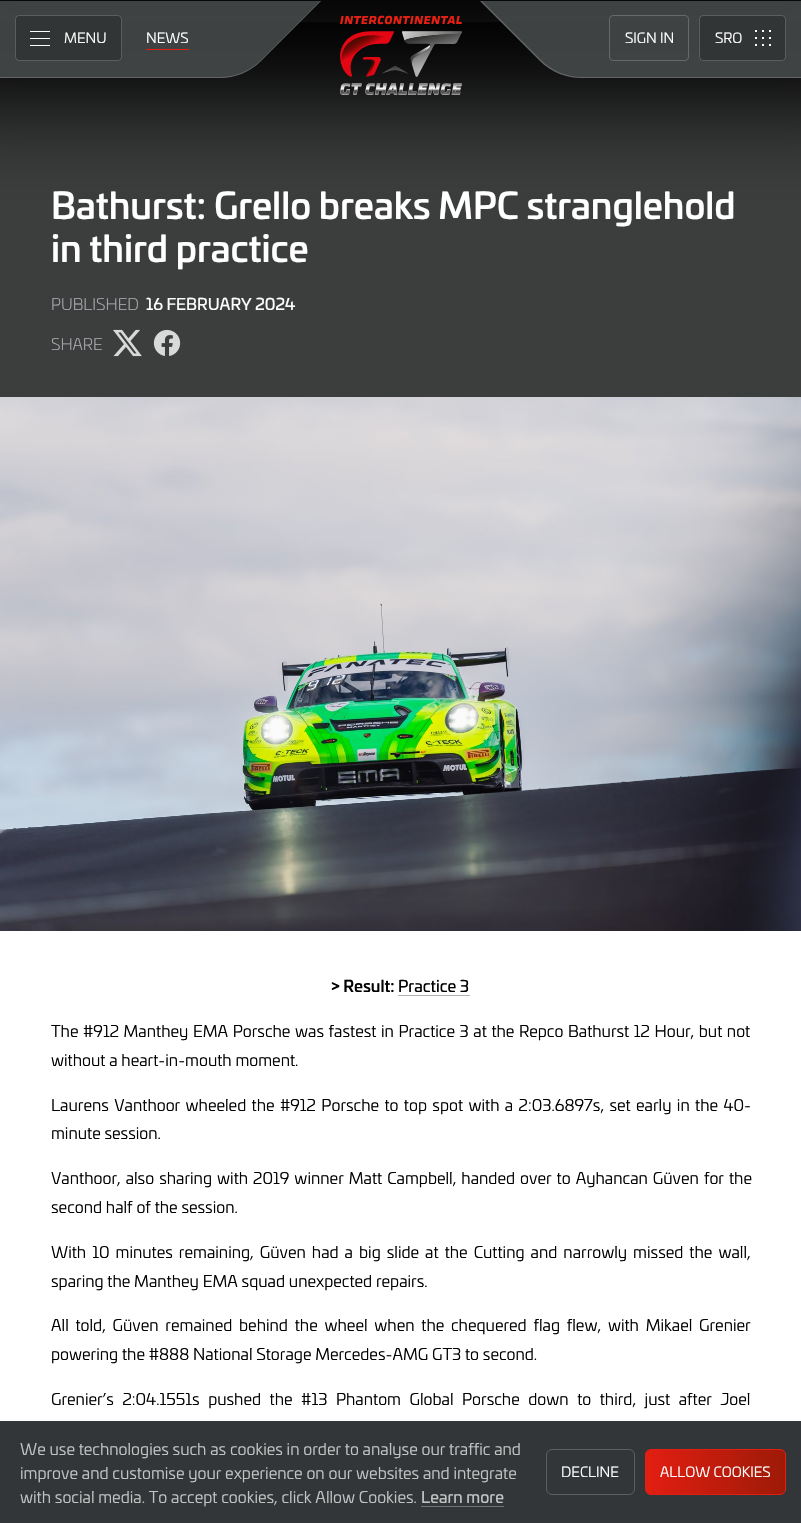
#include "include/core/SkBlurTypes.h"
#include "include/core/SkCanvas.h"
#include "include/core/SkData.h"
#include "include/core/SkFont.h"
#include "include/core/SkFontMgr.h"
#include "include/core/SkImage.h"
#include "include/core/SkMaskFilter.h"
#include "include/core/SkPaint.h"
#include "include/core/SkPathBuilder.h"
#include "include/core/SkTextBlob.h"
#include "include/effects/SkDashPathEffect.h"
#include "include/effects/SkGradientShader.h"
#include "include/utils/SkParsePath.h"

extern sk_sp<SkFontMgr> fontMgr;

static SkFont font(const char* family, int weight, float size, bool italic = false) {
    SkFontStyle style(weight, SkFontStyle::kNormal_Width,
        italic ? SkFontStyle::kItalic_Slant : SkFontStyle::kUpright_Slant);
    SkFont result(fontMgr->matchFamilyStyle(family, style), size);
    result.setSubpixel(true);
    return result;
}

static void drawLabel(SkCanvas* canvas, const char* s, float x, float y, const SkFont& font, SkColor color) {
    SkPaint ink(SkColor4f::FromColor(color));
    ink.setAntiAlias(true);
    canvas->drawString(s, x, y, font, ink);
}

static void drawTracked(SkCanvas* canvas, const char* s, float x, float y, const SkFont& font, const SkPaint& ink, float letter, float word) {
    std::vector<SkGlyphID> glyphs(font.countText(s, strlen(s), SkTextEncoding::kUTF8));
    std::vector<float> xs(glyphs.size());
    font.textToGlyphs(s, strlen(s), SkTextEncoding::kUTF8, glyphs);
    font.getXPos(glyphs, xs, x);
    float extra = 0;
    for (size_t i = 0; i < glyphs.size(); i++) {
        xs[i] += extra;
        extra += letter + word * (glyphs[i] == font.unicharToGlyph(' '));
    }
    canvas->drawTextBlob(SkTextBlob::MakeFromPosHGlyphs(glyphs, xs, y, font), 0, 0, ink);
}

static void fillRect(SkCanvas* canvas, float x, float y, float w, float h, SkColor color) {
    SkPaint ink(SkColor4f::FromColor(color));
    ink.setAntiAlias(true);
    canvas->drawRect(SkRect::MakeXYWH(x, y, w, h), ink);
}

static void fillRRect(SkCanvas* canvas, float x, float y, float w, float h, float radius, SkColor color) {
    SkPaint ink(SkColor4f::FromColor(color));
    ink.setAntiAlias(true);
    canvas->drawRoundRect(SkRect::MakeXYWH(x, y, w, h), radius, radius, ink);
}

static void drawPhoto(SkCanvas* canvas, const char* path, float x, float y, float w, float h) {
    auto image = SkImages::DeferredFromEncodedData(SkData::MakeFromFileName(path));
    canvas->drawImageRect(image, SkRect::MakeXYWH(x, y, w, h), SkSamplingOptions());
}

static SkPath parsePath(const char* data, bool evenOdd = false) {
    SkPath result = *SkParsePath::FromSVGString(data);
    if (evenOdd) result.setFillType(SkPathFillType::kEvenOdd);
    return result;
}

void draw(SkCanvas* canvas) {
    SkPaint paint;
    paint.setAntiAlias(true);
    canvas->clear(0xFFFFFFFF);
    fillRect(canvas, 0, 22, 801, 375, 0xFF3C3D3D);
    paint.setColor(0xFF000000);
    paint.setMaskFilter(SkMaskFilter::MakeBlur(kNormal_SkBlurStyle, 50));
    canvas->drawRect(SkRect::MakeXYWH(-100, -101, 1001, 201), paint);
    paint.setMaskFilter(nullptr);
    paint.setColor(0xE6454849);
    canvas->drawPath(parsePath("M-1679 1V78H220C235 78 250 72 261 61L321 1Z"), paint);
    paint.setColor(0x2EFFFFFF);
    canvas->drawPath(parsePath("M320 1L261 60C250 71 235 77 220 77H-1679V78H220C235 78 250 72 261 61L321 1Z"), paint);
    fillRRect(canvas, 15, 15, 107, 46, 4, 0xFF323535);
    paint.setStroke(true);
    paint.setStrokeWidth(1);
    paint.setColor(0x33FFFFFF);
    canvas->drawRoundRect(SkRect::MakeXYWH(15.5f, 15.5f, 106, 45), 3.5f, 3.5f, paint);
    fillRect(canvas, 30, 31, 20, 1, 0xFFFFFFFF);
    fillRect(canvas, 30, 38, 20, 1, 0xFFFFFFFF);
    fillRect(canvas, 30, 45, 20, 1, 0xFFFFFFFF);
    SkFont font1 = font("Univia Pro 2", 400, 14);
    drawLabel(canvas, "MENU", 64, 43, font1, 0xFFFFFFFF);
    drawLabel(canvas, "NEWS", 146, 43, font1, 0xFFFFFFFF);
    fillRect(canvas, 146, 49, 43, 1, 0xFFE31E12);
    drawPhoto(canvas, "assets/img1.png", 340, 15, 122, 80);
    paint.setStroke(false);
    paint.setColor(0xE6454849);
    canvas->drawPath(parsePath("M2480 1V78H582C566 78 551 72 540 61L480 1Z"), paint);
    paint.setColor(0x2EFFFFFF);
    canvas->drawPath(parsePath("M482 1L541 60C552 71 567 77 582 77H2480V78H582C566 78 551 72 540 61L480 1Z"), paint);
    paint.setStroke(true);
    paint.setColor(0xFF666869);
    canvas->drawRoundRect(SkRect::MakeXYWH(609.5f, 15.5f, 79, 45), 3.5f, 3.5f, paint);
    drawLabel(canvas, "SIGN IN", 625, 43, font1, 0xFFFFFFFF);
    fillRRect(canvas, 699, 15, 87, 46, 4, 0xFF323535);
    paint.setColor(0x33FFFFFF);
    canvas->drawRoundRect(SkRect::MakeXYWH(699.5f, 15.5f, 86, 45), 3.5f, 3.5f, paint);
    drawLabel(canvas, "SRO", 715, 43, font1, 0xFFFFFFFF);
    fillRect(canvas, 755, 30, 2, 2, 0xFFFFFFFF);
    fillRect(canvas, 762, 30, 2, 2, 0xFFFFFFFF);
    fillRect(canvas, 769, 30, 2, 2, 0xFFFFFFFF);
    fillRect(canvas, 755, 37, 2, 2, 0xFFFFFFFF);
    fillRect(canvas, 762, 37, 2, 2, 0xFFFFFFFF);
    fillRect(canvas, 769, 37, 2, 2, 0xFFFFFFFF);
    fillRect(canvas, 755, 44, 2, 2, 0xFFFFFFFF);
    fillRect(canvas, 762, 44, 2, 2, 0xFFFFFFFF);
    fillRect(canvas, 769, 44, 2, 2, 0xFFFFFFFF);
    SkFont font2 = font("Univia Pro", 500, 36);
    drawLabel(canvas, "Bathurst: Grello breaks MPC stranglehold", 51, 219, font2, 0xFFFFFFFF);
    drawLabel(canvas, "in third practice", 51, 262, font2, 0xFFFFFFFF);
    SkFont font3 = font("Univia Pro", 300, 16);
    drawLabel(canvas, "PUBLISHED", 51, 310, font3, 0xFFABAFB3);
    SkFont font4 = font("Univia Pro", 400, 16);
    drawLabel(canvas, "16 FEBRUARY 2024", 146, 310, font4, 0xFFFFFFFF);
    drawLabel(canvas, "SHARE", 51, 350, font3, 0xFFABAFB3);
    drawPhoto(canvas, "assets/img2.png", 113, 329, 29, 28);
    drawPhoto(canvas, "assets/img3.png", 153, 329, 28, 27);
    drawPhoto(canvas, "assets/img4.png", 0, 397, 801, 534);
    SkFont font5 = font("Univia Pro", 500, 16);
    drawLabel(canvas, "> Result:", 331, 992, font5, 0xFF000000);
    drawLabel(canvas, "Practice 3", 398, 992, font4, 0xFF000000);
    fillRect(canvas, 398, 995, 72, 1, 0xFFB3B3B3);
    SkFont font6 = font("Univia Pro 2", 400, 16);
    paint.setStroke(false);
    paint.setColor(0xFF000000);
    drawTracked(canvas, "The #912 Manthey EMA Porsche was fastest in Practice 3 at the Repco Bathurst 12 Hour, but not", 51, 1037, font6, paint, 0, 0.8f);
    drawLabel(canvas, "without a heart-in-mouth moment.", 51, 1066, font6, 0xFF000000);
    drawTracked(canvas, "Laurens Vanthoor wheeled the #912 Porsche to top spot with a 2:03.6897s, set early in the 40-", 51, 1111, font6, paint, 0, 1.6f);
    drawLabel(canvas, "minute session.", 51, 1139, font6, 0xFF000000);
    drawTracked(canvas, "Vanthoor, also sharing with 2019 winner Matt Campbell, handed over to Ayhancan Güven for the", 51, 1184, font6, paint, 0, 1.25f);
    drawLabel(canvas, "second half of the session.", 51, 1213, font6, 0xFF000000);
    drawTracked(canvas, "With 10 minutes remaining, Güven had a big slide at the Cutting and narrowly missed the wall,", 51, 1258, font6, paint, 0, 2.25f);
    drawLabel(canvas, "sparing the Manthey EMA squad unexpected repairs.", 51, 1287, font6, 0xFF000000);
    drawTracked(canvas, "All told, Güven remained behind the wheel when the chequered flag flew, with Mikael Grenier", 51, 1331, font6, paint, 0, 3);
    drawLabel(canvas, "powering the #888 National Storage Mercedes-AMG GT3 to second.", 51, 1360, font6, 0xFF000000);
    drawTracked(canvas, "Grenier’s 2:04.1551s pushed the #13 Phantom Global Porsche down to third, just after Joel", 51, 1405, font6, paint, 0, 4.75f);
    fillRect(canvas, 0, 1421, 801, 102, 0xFF333638);
    drawLabel(canvas, "We use technologies such as cookies in order to analyse our traffic and", 20, 1455, font6, 0xFFC2C3C3);
    drawLabel(canvas, "improve and customise your experience on our websites and integrate", 20, 1479, font6, 0xFFC2C3C3);
    drawLabel(canvas, "with social media. To accept cookies, click Allow Cookies.", 20, 1503, font6, 0xFFC2C3C3);
    drawLabel(canvas, "Learn more", 421, 1503, font4, 0xFFC2C3C3);
    fillRect(canvas, 421, 1506, 83, 1, 0xFF707274);
    paint.setStroke(true);
    paint.setColor(0xFF5C5E60);
    canvas->drawRoundRect(SkRect::MakeXYWH(546.5f, 1449.5f, 88, 45), 5.5f, 5.5f, paint);
    drawLabel(canvas, "DECLINE", 561, 1477, font1, 0xFFFFFFFF);
    paint.setStroke(false);
    {
        const SkColor colors[] = {0xFFE31E12, 0xFF9D1A07};
        const float stops[] = {0, 1};
        const SkPoint ends[] = {{645, 1472}, {786, 1472}};
        paint.setShader(SkGradientShader::MakeLinear(ends, colors, stops, 2, SkTileMode::kClamp));
        paint.setAlpha(255);
    }
    canvas->drawRoundRect(SkRect::MakeXYWH(645.5f, 1449.5f, 140, 45), 5.5f, 5.5f, paint);
    paint.setStroke(true);
    paint.setShader(nullptr);
    paint.setColor(0xFFE31E12);
    canvas->drawRoundRect(SkRect::MakeXYWH(645.5f, 1449.5f, 140, 45), 5.5f, 5.5f, paint);
    drawLabel(canvas, "ALLOW COOKIES", 660, 1477, font1, 0xFFFFFFFF);
}
